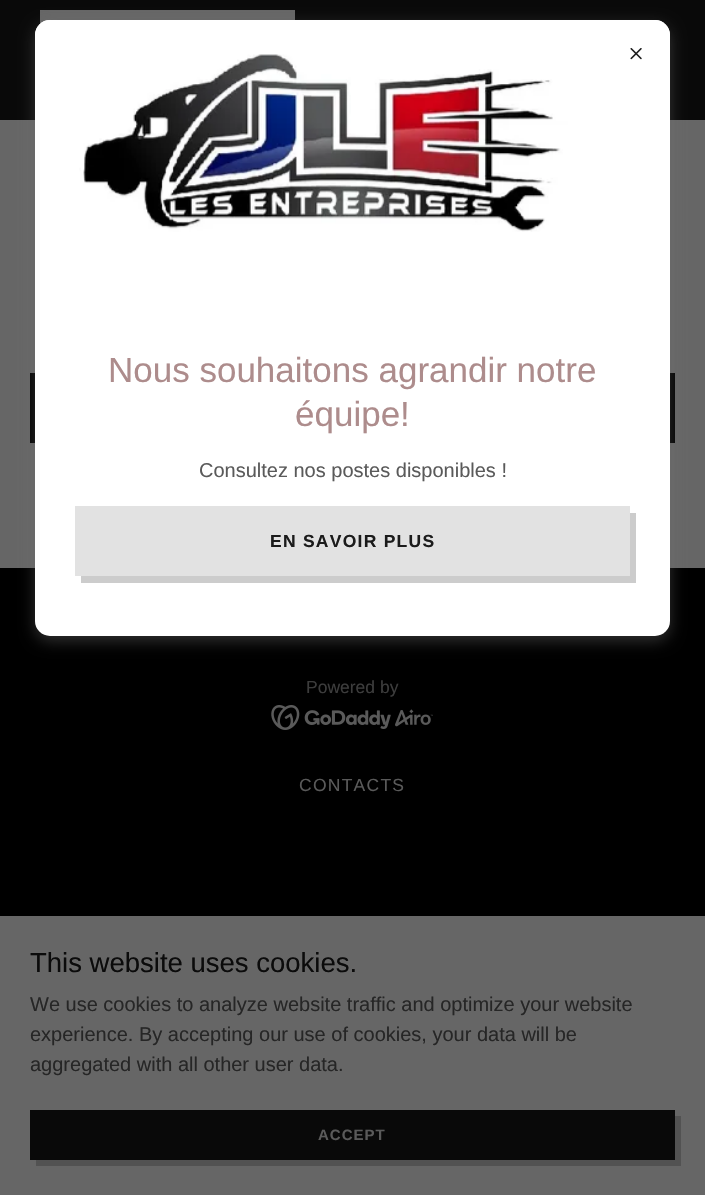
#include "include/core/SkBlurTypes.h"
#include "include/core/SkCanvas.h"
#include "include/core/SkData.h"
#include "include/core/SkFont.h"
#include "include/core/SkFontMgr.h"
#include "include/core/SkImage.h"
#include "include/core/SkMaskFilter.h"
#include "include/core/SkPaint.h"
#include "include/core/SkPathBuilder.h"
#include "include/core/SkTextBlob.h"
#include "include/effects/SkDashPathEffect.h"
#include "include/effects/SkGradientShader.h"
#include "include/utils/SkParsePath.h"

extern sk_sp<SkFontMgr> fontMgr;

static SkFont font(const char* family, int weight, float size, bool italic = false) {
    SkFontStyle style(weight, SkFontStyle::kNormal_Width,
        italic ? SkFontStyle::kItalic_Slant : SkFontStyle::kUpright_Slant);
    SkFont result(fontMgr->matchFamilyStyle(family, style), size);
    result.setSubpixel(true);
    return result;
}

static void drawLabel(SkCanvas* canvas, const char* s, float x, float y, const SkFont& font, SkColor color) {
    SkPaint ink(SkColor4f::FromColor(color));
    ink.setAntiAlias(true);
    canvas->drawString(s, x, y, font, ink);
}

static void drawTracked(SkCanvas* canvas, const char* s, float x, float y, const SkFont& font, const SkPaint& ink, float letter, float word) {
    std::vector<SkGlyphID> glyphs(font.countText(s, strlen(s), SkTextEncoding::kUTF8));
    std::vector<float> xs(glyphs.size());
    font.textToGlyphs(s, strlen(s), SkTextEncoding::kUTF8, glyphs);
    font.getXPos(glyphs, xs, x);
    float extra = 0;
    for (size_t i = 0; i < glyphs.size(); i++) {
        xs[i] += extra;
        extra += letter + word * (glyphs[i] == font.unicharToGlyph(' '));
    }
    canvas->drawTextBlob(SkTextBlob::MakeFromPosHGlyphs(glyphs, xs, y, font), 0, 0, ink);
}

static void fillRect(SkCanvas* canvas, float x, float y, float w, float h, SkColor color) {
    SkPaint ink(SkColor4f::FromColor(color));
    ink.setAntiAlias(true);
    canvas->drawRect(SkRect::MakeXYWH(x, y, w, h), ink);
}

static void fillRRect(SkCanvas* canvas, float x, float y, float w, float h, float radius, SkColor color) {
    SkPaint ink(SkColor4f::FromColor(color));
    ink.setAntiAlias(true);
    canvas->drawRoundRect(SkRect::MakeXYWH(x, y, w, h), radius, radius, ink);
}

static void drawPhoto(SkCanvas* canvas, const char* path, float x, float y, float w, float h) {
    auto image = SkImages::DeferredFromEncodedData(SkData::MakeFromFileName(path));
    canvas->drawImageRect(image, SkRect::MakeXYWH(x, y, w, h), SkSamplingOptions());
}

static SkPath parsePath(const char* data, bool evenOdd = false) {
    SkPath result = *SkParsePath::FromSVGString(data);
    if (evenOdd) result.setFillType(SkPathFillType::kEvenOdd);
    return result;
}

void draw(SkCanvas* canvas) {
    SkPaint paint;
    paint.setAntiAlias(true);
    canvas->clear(0xFF000000);
    fillRect(canvas, 0, 0, 705, 120, 0xFF090909);
    fillRect(canvas, 40, 10, 255, 14, 0xFF666666);
    fillRect(canvas, 0, 120, 705, 448, 0xFF666666);
    fillRect(canvas, 30, 373, 645, 70, 0xFF000000);
    paint.setColor(0x66757575);
    paint.setMaskFilter(SkMaskFilter::MakeBlur(kNormal_SkBlurStyle, 7.5f));
    canvas->drawRoundRect(SkRect::MakeXYWH(35, 25, 635, 616), 15, 15, paint);
    paint.setMaskFilter(nullptr);
    fillRRect(canvas, 35, 20, 635, 616, 15, 0xFFFFFFFF);
    drawPhoto(canvas, "assets/img2.png", 35, 20, 635, 212);
    drawPhoto(canvas, "assets/img1.png", 630, 48, 12, 12);
    SkFont font1 = font("Liberation Sans", 400, 35);
    drawLabel(canvas, "Nous souhaitons agrandir notre", 108, 382, font1, 0xFFAD8C8C);
    drawLabel(canvas, "équipe!", 295, 426, font1, 0xFFAD8C8C);
    SkFont font2 = font("Liberation Sans", 400, 20);
    drawLabel(canvas, "Consultez nos postes disponibles !", 199, 477, font2, 0xFF5A5A5A);
    fillRect(canvas, 75, 506, 555, 70, 0xFFE2E2E2);
    paint.setColor(0xFFCCCCCC);
    canvas->drawPath(parsePath("M81 576V583H636V513H630V576Z"), paint);
    SkFont font3 = font("Liberation Sans", 700, 17.5f);
    paint.setColor(0xFF1B1B1B);
    drawTracked(canvas, "EN SAVOIR PLUS", 270, 547, font3, paint, 1.25f, 0);
    SkFont font4 = font("Liberation Sans", 400, 17.5f);
    drawLabel(canvas, "Powered by", 306, 693, font4, 0xFF3C3C3C);
    drawPhoto(canvas, "assets/img3.png", 271, 705, 162, 25);
    paint.setColor(0xFF5A5A5A);
    drawTracked(canvas, "CONTACTS", 299, 791, font4, paint, 1.25f, 0);
    fillRect(canvas, 0, 916, 705, 279, 0xFF666666);
    SkFont font5 = font("Liberation Sans", 400, 27.5f);
    drawLabel(canvas, "This website uses cookies.", 30, 972, font5, 0xFF0B0B0B);
    drawLabel(canvas, "We use cookies to analyze website traffic and optimize your website", 30, 1011, font2, 0xFF262626);
    drawLabel(canvas, "experience. By accepting our use of cookies, your data will be", 30, 1041, font2, 0xFF262626);
    drawLabel(canvas, "aggregated with all other user data.", 30, 1071, font2, 0xFF262626);
    fillRect(canvas, 30, 1110, 645, 50, 0xFF090909);
    paint.setColor(0xFF525252);
    canvas->drawPath(parsePath("M36 1160V1166H681V1116H675V1160Z"), paint);
    SkFont font6 = font("Liberation Sans", 700, 15);
    paint.setColor(0xFF5A5A5A);
    drawTracked(canvas, "ACCEPT", 318, 1140, font6, paint, 1, 0);
}
